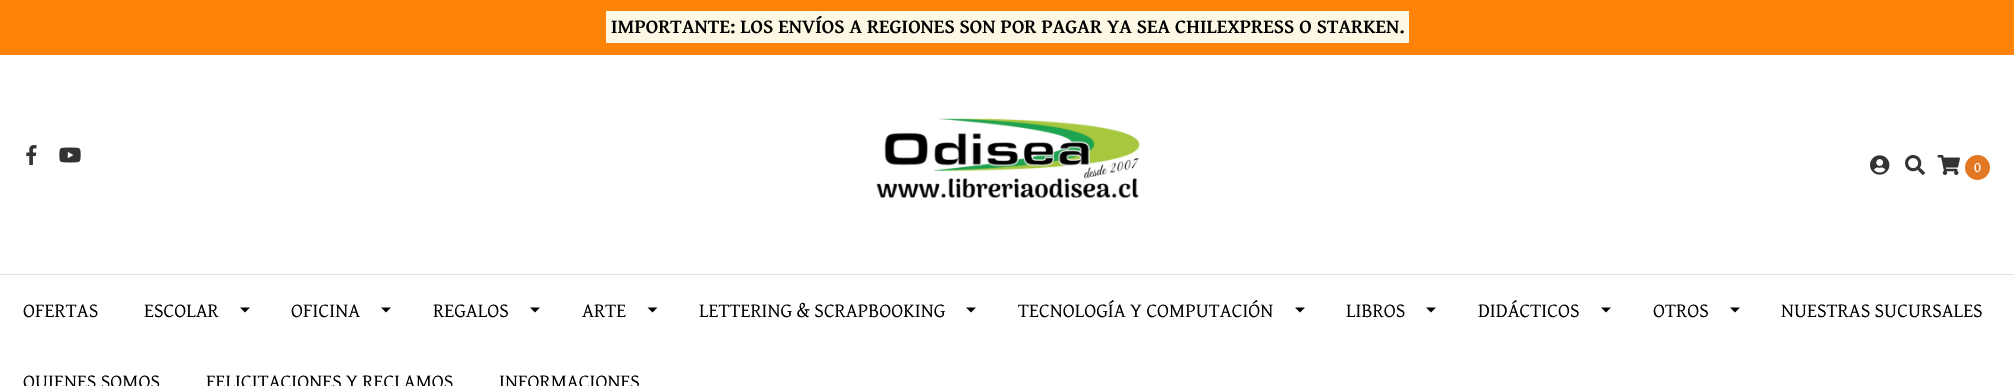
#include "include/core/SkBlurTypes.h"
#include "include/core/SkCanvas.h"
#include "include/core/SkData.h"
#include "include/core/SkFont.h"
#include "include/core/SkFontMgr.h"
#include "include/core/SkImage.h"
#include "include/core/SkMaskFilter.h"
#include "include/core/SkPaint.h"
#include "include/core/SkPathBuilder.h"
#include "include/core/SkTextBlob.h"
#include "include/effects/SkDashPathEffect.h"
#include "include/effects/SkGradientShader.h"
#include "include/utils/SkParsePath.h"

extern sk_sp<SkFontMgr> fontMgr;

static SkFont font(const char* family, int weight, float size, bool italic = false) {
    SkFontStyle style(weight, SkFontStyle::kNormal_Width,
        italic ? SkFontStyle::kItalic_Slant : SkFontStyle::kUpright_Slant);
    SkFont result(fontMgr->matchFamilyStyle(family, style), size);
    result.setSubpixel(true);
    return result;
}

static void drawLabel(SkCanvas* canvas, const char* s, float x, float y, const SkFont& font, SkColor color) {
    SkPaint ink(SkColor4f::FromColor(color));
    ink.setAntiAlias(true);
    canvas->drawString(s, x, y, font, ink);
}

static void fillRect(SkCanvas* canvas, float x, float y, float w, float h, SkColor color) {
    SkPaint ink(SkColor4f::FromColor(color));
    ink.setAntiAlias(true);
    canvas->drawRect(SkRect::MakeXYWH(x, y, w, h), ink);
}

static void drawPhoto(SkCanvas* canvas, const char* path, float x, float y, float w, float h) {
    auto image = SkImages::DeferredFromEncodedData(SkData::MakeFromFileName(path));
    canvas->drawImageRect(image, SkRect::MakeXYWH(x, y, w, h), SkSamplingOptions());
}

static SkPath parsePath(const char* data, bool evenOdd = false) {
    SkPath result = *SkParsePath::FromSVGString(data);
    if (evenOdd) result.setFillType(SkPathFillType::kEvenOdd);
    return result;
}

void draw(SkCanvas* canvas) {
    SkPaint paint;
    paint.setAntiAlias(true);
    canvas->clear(0xFFFFFFFF);
    fillRect(canvas, 0, 0, 2014, 55, 0xFFFF8306);
    fillRect(canvas, 606, 11, 803, 32, 0xFFFCF8E3);
    SkFont font1 = font("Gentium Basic", 700, 20);
    drawLabel(canvas, "IMPORTANTE: LOS ENVÍOS A REGIONES SON POR PAGAR YA SEA CHILEXPRESS O STARKEN.", 611, 33, font1, 0xFF000000);
    drawPhoto(canvas, "assets/img1.png", 26, 145, 11, 20);
    drawPhoto(canvas, "assets/img2.png", 59, 147, 22, 16);
    drawPhoto(canvas, "assets/img3.png", 876, 118, 264, 81);
    drawPhoto(canvas, "assets/img4.png", 1870, 155, 20, 20);
    drawPhoto(canvas, "assets/img5.png", 1905, 155, 20, 20);
    drawPhoto(canvas, "assets/img6.png", 1937, 155, 23, 20);
    paint.setColor(0xFFE27823);
    canvas->drawCircle(1977.5f, 167.5f, 12.5f, paint);
    SkFont font2 = font("Gentium Basic", 400, 15);
    drawLabel(canvas, "0", 1974, 172, font2, 0xFFFFFFFF);
    fillRect(canvas, 0, 274, 2014, 1, 0xFFE1E1E1);
    SkFont font3 = font("Gentium Basic", 400, 20);
    drawLabel(canvas, "OFERTAS", 23, 317, font3, 0xFF000000);
    drawLabel(canvas, "ESCOLAR", 144, 317, font3, 0xFF000000);
    paint.setColor(0xFF000000);
    canvas->drawPath(parsePath("M240 307.5H250L245 312.5Z"), paint);
    drawLabel(canvas, "OFICINA", 291, 317, font3, 0xFF000000);
    canvas->drawPath(parsePath("M381 307.5H391L386 312.5Z"), paint);
    drawLabel(canvas, "REGALOS", 433, 317, font3, 0xFF000000);
    canvas->drawPath(parsePath("M530 307.5H540L535 312.5Z"), paint);
    drawLabel(canvas, "ARTE", 582, 317, font3, 0xFF000000);
    canvas->drawPath(parsePath("M647.5 307.5H657.5L652.5 312.5Z"), paint);
    drawLabel(canvas, "LETTERING & SCRAPBOOKING", 699, 317, font3, 0xFF000000);
    canvas->drawPath(parsePath("M966 307.5H976L971 312.5Z"), paint);
    drawLabel(canvas, "TECNOLOGÍA Y COMPUTACIÓN", 1018, 317, font3, 0xFF000000);
    canvas->drawPath(parsePath("M1295 307.5H1305L1300 312.5Z"), paint);
    drawLabel(canvas, "LIBROS", 1346, 317, font3, 0xFF000000);
    canvas->drawPath(parsePath("M1426 307.5H1436L1431 312.5Z"), paint);
    drawLabel(canvas, "DIDÁCTICOS", 1478, 317, font3, 0xFF000000);
    canvas->drawPath(parsePath("M1601 307.5H1611L1606 312.5Z"), paint);
    drawLabel(canvas, "OTROS", 1653, 317, font3, 0xFF000000);
    canvas->drawPath(parsePath("M1730 307.5H1740L1735 312.5Z"), paint);
    drawLabel(canvas, "NUESTRAS SUCURSALES", 1781, 317, font3, 0xFF000000);
    drawLabel(canvas, "QUIENES SOMOS", 23, 388, font3, 0xFF000000);
    drawLabel(canvas, "FELICITACIONES Y RECLAMOS", 206, 388, font3, 0xFF000000);
    drawLabel(canvas, "INFORMACIONES", 499, 388, font3, 0xFF000000);
}
